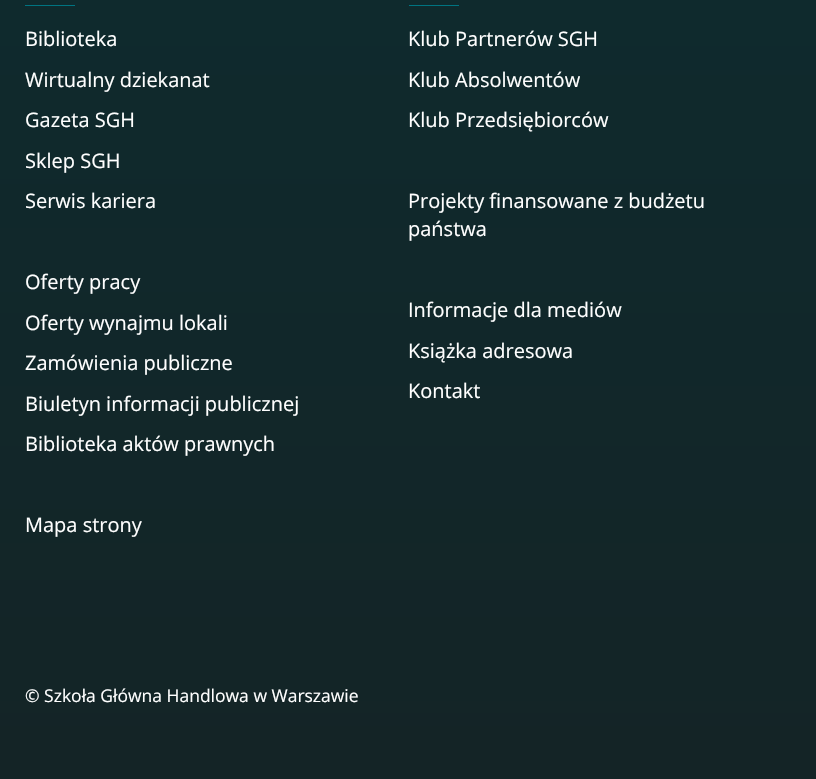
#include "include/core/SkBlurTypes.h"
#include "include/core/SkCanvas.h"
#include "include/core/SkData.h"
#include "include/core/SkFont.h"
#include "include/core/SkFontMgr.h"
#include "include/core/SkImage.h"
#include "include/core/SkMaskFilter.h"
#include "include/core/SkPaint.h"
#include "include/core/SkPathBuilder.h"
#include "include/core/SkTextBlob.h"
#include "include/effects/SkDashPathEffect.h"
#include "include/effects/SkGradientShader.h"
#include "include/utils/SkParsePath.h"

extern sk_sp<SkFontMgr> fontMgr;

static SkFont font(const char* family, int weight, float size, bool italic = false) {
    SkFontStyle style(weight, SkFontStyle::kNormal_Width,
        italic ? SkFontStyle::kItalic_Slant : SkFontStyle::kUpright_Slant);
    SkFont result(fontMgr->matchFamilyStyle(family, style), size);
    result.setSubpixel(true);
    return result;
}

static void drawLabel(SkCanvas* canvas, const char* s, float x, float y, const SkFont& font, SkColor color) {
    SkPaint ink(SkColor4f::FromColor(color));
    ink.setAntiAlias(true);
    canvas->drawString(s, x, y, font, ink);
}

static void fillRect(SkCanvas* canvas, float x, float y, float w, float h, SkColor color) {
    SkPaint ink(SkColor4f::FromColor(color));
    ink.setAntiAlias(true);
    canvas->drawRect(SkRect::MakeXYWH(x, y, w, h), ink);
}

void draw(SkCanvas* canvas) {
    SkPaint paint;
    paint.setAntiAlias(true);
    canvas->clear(0xFFFFFFFF);
    {
        const SkColor colors[] = {0xFF093136, 0xFF142426};
        const float stops[] = {0, 1};
        const SkPoint ends[] = {{408, -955}, {408, 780}};
        paint.setShader(SkGradientShader::MakeLinear(ends, colors, stops, 2, SkTileMode::kClamp));
        paint.setAlpha(255);
    }
    canvas->drawRect(SkRect::MakeXYWH(0, 0, 816, 779), paint);
    fillRect(canvas, 25, 5, 50, 1, 0xFF007481);
    SkFont font1 = font("Open Sans", 400, 20);
    drawLabel(canvas, "Biblioteka", 25, 46, font1, 0xFFFFFFFF);
    drawLabel(canvas, "Wirtualny dziekanat", 25, 87, font1, 0xFFFFFFFF);
    drawLabel(canvas, "Gazeta SGH", 25, 127, font1, 0xFFFFFFFF);
    drawLabel(canvas, "Sklep SGH", 25, 168, font1, 0xFFFFFFFF);
    drawLabel(canvas, "Serwis kariera", 25, 208, font1, 0xFFFFFFFF);
    drawLabel(canvas, "Oferty pracy", 25, 289, font1, 0xFFFFFFFF);
    drawLabel(canvas, "Oferty wynajmu lokali", 25, 330, font1, 0xFFFFFFFF);
    drawLabel(canvas, "Zamówienia publiczne", 25, 370, font1, 0xFFFFFFFF);
    drawLabel(canvas, "Biuletyn informacji publicznej", 25, 411, font1, 0xFFFFFFFF);
    drawLabel(canvas, "Biblioteka aktów prawnych", 25, 451, font1, 0xFFFFFFFF);
    drawLabel(canvas, "Mapa strony", 25, 532, font1, 0xFFFFFFFF);
    fillRect(canvas, 409, 5, 50, 1, 0xFF007481);
    drawLabel(canvas, "Klub Partnerów SGH", 408, 46, font1, 0xFFFFFFFF);
    drawLabel(canvas, "Klub Absolwentów", 408, 87, font1, 0xFFFFFFFF);
    drawLabel(canvas, "Klub Przedsiębiorców", 408, 127, font1, 0xFFFFFFFF);
    drawLabel(canvas, "Projekty finansowane z budżetu", 408, 208, font1, 0xFFFFFFFF);
    drawLabel(canvas, "państwa", 408, 236, font1, 0xFFFFFFFF);
    drawLabel(canvas, "Informacje dla mediów", 408, 317, font1, 0xFFFFFFFF);
    drawLabel(canvas, "Książka adresowa", 408, 358, font1, 0xFFFFFFFF);
    drawLabel(canvas, "Kontakt", 408, 398, font1, 0xFFFFFFFF);
    SkFont font2 = font("Open Sans", 400, 17.5f);
    drawLabel(canvas, "© Szkoła Główna Handlowa w Warszawie", 25, 702, font2, 0xFFFFFFFF);
}
